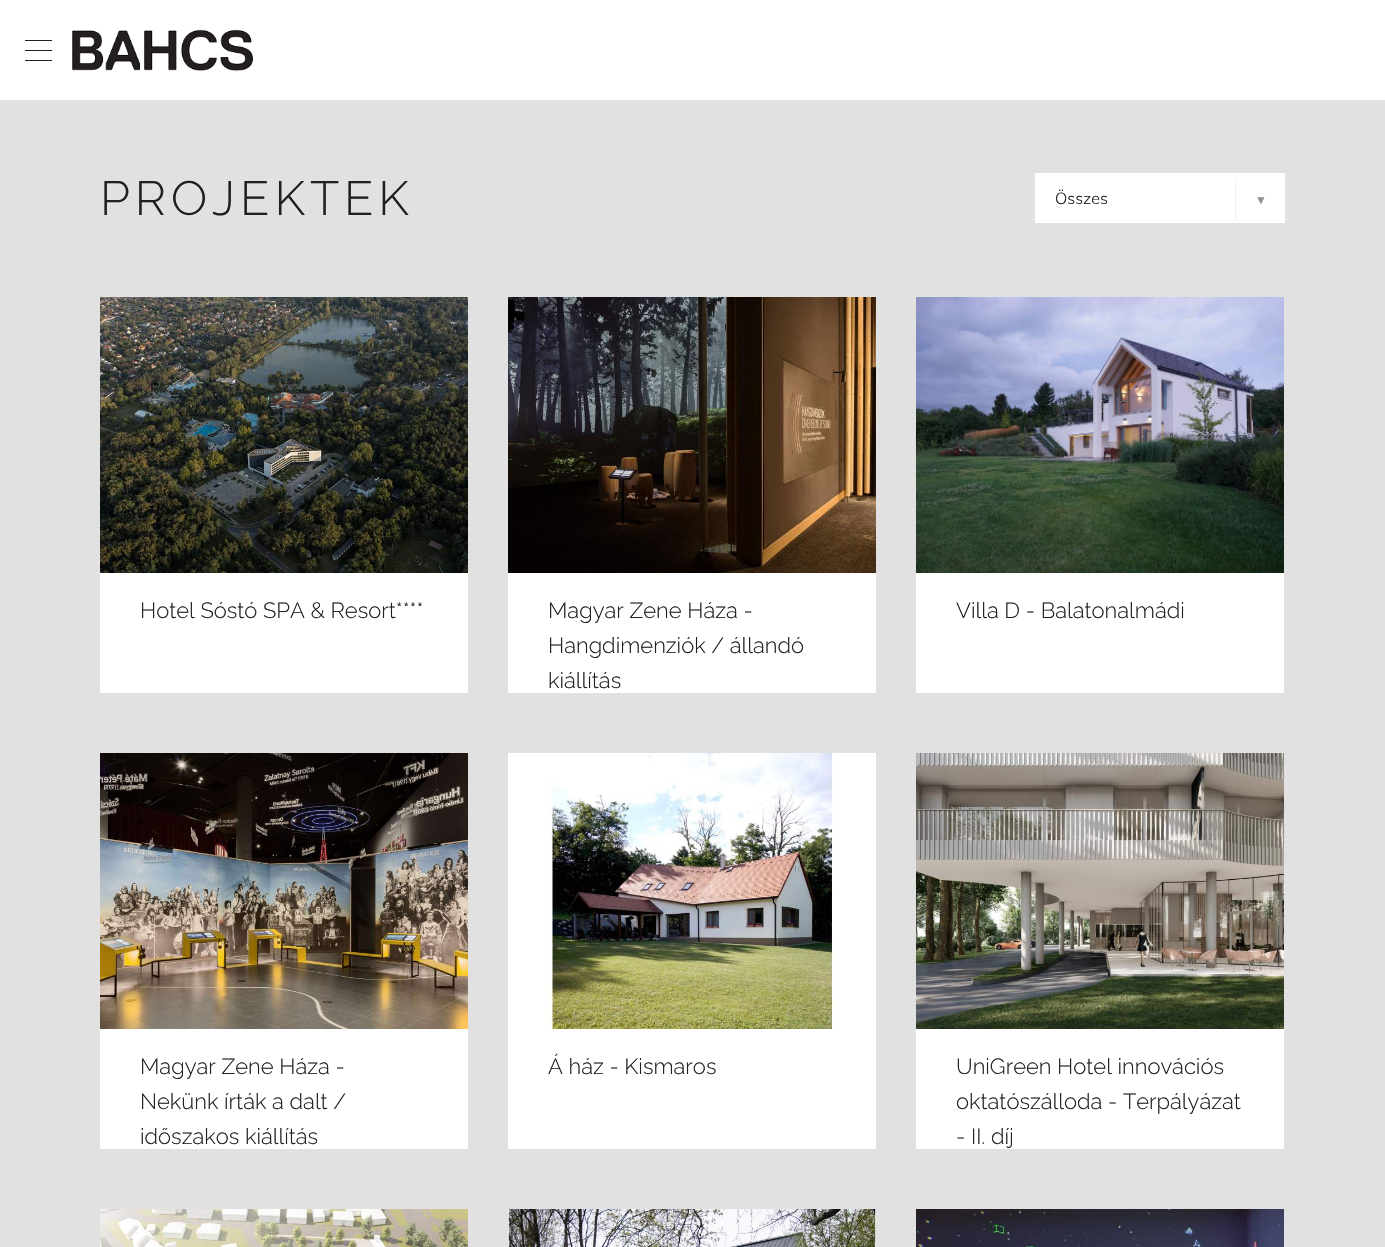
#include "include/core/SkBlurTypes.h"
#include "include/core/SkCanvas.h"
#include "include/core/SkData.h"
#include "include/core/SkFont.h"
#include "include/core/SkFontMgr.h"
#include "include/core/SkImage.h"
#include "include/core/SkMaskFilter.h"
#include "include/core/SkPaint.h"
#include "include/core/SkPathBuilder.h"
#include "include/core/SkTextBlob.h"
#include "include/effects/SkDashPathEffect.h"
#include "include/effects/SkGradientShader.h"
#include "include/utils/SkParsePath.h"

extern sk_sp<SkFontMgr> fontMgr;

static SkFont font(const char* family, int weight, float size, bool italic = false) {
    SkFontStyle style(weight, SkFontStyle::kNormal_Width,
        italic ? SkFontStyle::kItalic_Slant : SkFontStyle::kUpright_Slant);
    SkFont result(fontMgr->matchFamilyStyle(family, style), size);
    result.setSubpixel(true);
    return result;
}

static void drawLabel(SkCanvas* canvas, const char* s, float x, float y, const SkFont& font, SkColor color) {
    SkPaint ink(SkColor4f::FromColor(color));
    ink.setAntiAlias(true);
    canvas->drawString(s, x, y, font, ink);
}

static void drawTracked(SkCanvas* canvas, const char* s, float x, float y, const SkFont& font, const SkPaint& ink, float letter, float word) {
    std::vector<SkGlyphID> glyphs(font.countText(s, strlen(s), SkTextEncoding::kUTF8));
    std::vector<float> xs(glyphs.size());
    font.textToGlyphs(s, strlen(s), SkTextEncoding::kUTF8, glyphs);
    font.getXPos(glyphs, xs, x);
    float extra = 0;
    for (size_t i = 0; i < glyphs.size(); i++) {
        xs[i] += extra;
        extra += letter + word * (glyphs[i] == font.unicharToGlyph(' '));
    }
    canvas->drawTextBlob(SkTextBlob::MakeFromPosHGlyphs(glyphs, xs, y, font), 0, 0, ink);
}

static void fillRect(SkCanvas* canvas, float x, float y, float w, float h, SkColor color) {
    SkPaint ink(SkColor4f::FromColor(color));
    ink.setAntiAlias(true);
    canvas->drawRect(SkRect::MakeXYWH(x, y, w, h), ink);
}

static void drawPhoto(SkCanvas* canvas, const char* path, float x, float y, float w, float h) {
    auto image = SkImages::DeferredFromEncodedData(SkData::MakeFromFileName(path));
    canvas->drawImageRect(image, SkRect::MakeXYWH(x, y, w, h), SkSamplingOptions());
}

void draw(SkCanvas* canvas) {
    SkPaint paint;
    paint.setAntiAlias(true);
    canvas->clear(0xFFE1E1E1);
    fillRect(canvas, 0, 0, 1385, 100, 0xFFFFFFFF);
    fillRect(canvas, 25, 60, 27, 1, 0xFF202020);
    fillRect(canvas, 25, 40, 27, 1, 0xFF202020);
    fillRect(canvas, 25, 50, 27, 1, 0xFF202020);
    drawPhoto(canvas, "assets/img1.png", 72, 29, 181, 42);
    SkFont font1 = font("Raleway", 100, 48);
    paint.setColor(0xFF202020);
    drawTracked(canvas, "PROJEKTEK", 100, 215, font1, paint, 5, 0);
    fillRect(canvas, 1035, 173, 250, 50, 0xFFFFFFFF);
    SkFont font2 = font("Muli", 300, 16);
    drawLabel(canvas, "Összes", 1055, 204, font2, 0xFF202020);
    fillRect(canvas, 1235, 178, 1, 42, 0xFFF0F0F0);
    SkFont font3 = font("Liberation Sans", 400, 12);
    drawLabel(canvas, "▼", 1255, 204, font3, 0xFF909090);
    drawPhoto(canvas, "assets/img2.png", 100, 297, 368, 276);
    fillRect(canvas, 100, 573, 368, 120, 0xFFFFFFFF);
    SkFont font4 = font("Raleway", 100, 22);
    drawLabel(canvas, "Hotel Sóstó SPA & Resort****", 140, 618, font4, 0xFF202020);
    drawPhoto(canvas, "assets/img3.png", 508, 297, 368, 276);
    fillRect(canvas, 508, 573, 368, 120, 0xFFFFFFFF);
    drawLabel(canvas, "Magyar Zene Háza -", 548, 618, font4, 0xFF202020);
    drawLabel(canvas, "Hangdimenziók / állandó", 548, 653, font4, 0xFF202020);
    drawLabel(canvas, "kiállítás", 548, 688, font4, 0xFF202020);
    drawPhoto(canvas, "assets/img4.png", 916, 297, 368, 276);
    fillRect(canvas, 916, 573, 368, 120, 0xFFFFFFFF);
    drawLabel(canvas, "Villa D - Balatonalmádi", 956, 618, font4, 0xFF202020);
    drawPhoto(canvas, "assets/img5.png", 100, 753, 368, 276);
    fillRect(canvas, 100, 1029, 368, 120, 0xFFFFFFFF);
    drawLabel(canvas, "Magyar Zene Háza -", 140, 1074, font4, 0xFF202020);
    drawLabel(canvas, "Nekünk írták a dalt /", 140, 1109, font4, 0xFF202020);
    drawLabel(canvas, "időszakos kiállítás", 140, 1144, font4, 0xFF202020);
    drawPhoto(canvas, "assets/img6.png", 508, 753, 368, 276);
    fillRect(canvas, 508, 1029, 368, 120, 0xFFFFFFFF);
    drawLabel(canvas, "Á ház - Kismaros", 548, 1074, font4, 0xFF202020);
    drawPhoto(canvas, "assets/img7.png", 916, 753, 368, 276);
    fillRect(canvas, 916, 1029, 368, 120, 0xFFFFFFFF);
    drawLabel(canvas, "UniGreen Hotel innovációs", 956, 1074, font4, 0xFF202020);
    drawLabel(canvas, "oktatószálloda - Terpályázat", 956, 1109, font4, 0xFF202020);
    drawLabel(canvas, "- II. díj", 956, 1144, font4, 0xFF202020);
    drawPhoto(canvas, "assets/img8.png", 100, 1209, 368, 38);
    drawPhoto(canvas, "assets/img9.png", 508, 1209, 368, 38);
    drawPhoto(canvas, "assets/img10.png", 916, 1209, 368, 38);
}
